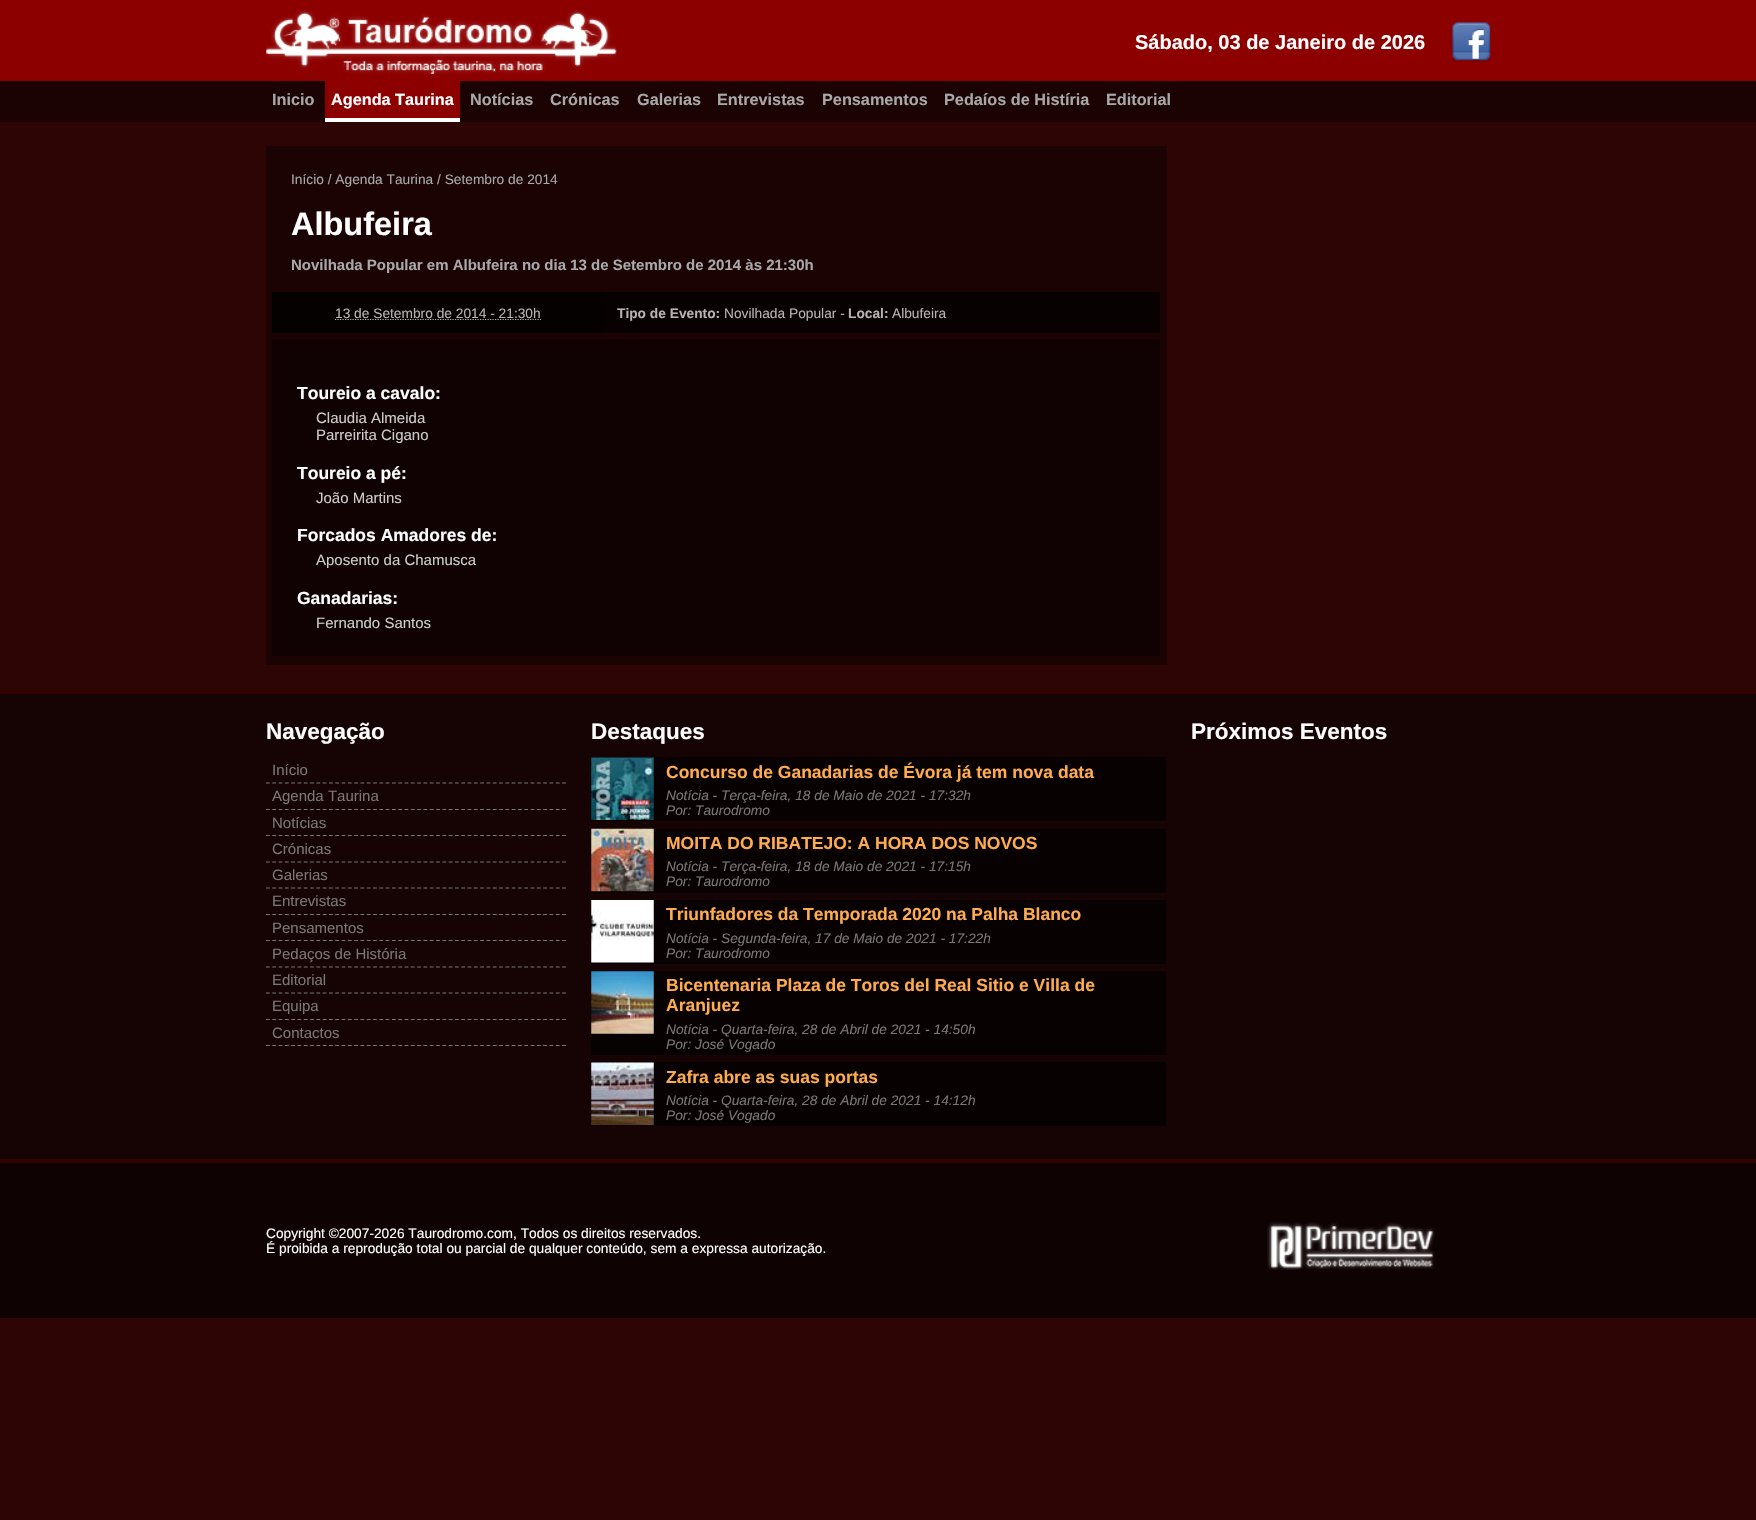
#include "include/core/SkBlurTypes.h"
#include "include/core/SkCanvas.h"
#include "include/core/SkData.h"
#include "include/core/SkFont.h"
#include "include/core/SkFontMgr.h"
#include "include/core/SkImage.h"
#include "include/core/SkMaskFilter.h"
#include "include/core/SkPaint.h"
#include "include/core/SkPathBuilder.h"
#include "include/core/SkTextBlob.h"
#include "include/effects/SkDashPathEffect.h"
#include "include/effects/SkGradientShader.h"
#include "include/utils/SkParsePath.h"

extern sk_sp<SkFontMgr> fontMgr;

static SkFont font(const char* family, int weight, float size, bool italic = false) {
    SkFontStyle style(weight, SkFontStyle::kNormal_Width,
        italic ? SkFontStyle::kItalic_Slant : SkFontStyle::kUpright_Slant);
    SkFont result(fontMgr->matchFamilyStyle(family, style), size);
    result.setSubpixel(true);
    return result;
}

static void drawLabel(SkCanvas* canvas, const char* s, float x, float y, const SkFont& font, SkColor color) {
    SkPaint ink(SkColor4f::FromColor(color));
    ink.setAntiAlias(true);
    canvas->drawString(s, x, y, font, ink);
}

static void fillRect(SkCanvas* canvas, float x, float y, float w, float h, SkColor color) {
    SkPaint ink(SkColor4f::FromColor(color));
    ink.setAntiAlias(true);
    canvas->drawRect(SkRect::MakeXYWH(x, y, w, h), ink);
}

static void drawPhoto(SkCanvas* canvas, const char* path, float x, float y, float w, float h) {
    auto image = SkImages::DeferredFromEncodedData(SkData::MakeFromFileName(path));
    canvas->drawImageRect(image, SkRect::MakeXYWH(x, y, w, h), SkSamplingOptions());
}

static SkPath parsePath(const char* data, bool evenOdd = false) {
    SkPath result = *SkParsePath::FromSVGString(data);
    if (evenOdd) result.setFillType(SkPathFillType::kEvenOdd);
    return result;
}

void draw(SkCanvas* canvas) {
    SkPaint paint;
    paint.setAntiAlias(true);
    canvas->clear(0xFF2D0505);
    fillRect(canvas, 0, 0, 1756, 81, 0xFF8D0000);
    drawPhoto(canvas, "assets/img1.png", 266, 10, 351, 65);
    SkFont font1 = font("Liberation Sans", 700, 20);
    drawLabel(canvas, "Sábado, 03 de Janeiro de 2026", 1135, 49, font1, 0xFFFFFFFF);
    drawPhoto(canvas, "assets/img2.png", 1452, 22, 39, 40);
    fillRect(canvas, 0, 81, 1756, 41, 0xFF1B0303);
    SkFont font2 = font("Liberation Sans", 700, 16.25f);
    drawLabel(canvas, "Inicio", 272, 105, font2, 0xFFA8A8A8);
    fillRect(canvas, 325, 81, 135, 37, 0xFF8D0000);
    fillRect(canvas, 325, 118, 135, 4, 0xFFFFFFFF);
    drawLabel(canvas, "Agenda Taurina", 331, 105, font2, 0xFFFFFFFF);
    drawLabel(canvas, "Notícias", 470, 105, font2, 0xFFA8A8A8);
    drawLabel(canvas, "Crónicas", 550, 105, font2, 0xFFA8A8A8);
    drawLabel(canvas, "Galerias", 637, 105, font2, 0xFFA8A8A8);
    drawLabel(canvas, "Entrevistas", 717, 105, font2, 0xFFA8A8A8);
    drawLabel(canvas, "Pensamentos", 822, 105, font2, 0xFFA8A8A8);
    drawLabel(canvas, "Pedaíos de Histíria", 944, 105, font2, 0xFFA8A8A8);
    drawLabel(canvas, "Editorial", 1106, 105, font2, 0xFFA8A8A8);
    fillRect(canvas, 266, 146, 901, 519, 0xFF1B0303);
    SkFont font3 = font("Liberation Sans", 400, 13.75f);
    drawLabel(canvas, "Início / Agenda Taurina / Setembro de 2014", 291, 184, font3, 0xFFA8A8A8);
    SkFont font4 = font("Liberation Sans", 700, 32.5f);
    drawLabel(canvas, "Albufeira", 291, 235, font4, 0xFFFFFFFF);
    SkFont font5 = font("Liberation Sans", 700, 15);
    drawLabel(canvas, "Novilhada Popular em Albufeira no dia 13 de Setembro de 2014 às 21:30h", 291, 270, font5, 0xFFA8A8A8);
    fillRect(canvas, 272, 292, 332, 41, 0xFF050101);
    paint.setStroke(true);
    paint.setStrokeWidth(1.2f);
    paint.setColor(0xFFB5B4B2);
    paint.setPathEffect(SkDashPathEffect::Make({{1.25f, 1.25f}}, 0));
    canvas->drawPath(parsePath("M335 319.5H541"), paint);
    paint.setPathEffect(nullptr);
    drawLabel(canvas, "13 de Setembro de 2014 - 21:30h", 335, 318, font3, 0xFFB5B4B2);
    fillRect(canvas, 604, 292, 556, 41, 0xFF080101);
    SkFont font6 = font("Liberation Sans", 700, 13.75f);
    drawLabel(canvas, "Tipo de Evento:", 617, 318, font6, 0xFFB5B4B2);
    drawLabel(canvas, "Novilhada Popular -", 724, 318, font3, 0xFFB5B4B2);
    drawLabel(canvas, "Local:", 848, 318, font6, 0xFFB5B4B2);
    drawLabel(canvas, "Albufeira", 892, 318, font3, 0xFFB5B4B2);
    fillRect(canvas, 272, 339, 888, 317, 0xFF100202);
    SkFont font7 = font("Liberation Sans", 700, 17.5f);
    drawLabel(canvas, "Toureio a cavalo:", 297, 399, font7, 0xFFFFFFFF);
    SkFont font8 = font("Liberation Sans", 400, 15);
    drawLabel(canvas, "Claudia Almeida", 316, 423, font8, 0xFFCCCCCC);
    drawLabel(canvas, "Parreirita Cigano", 316, 440, font8, 0xFFCCCCCC);
    drawLabel(canvas, "Toureio a pé:", 297, 479, font7, 0xFFFFFFFF);
    drawLabel(canvas, "João Martins", 316, 503, font8, 0xFFCCCCCC);
    drawLabel(canvas, "Forcados Amadores de:", 297, 541, font7, 0xFFFFFFFF);
    drawLabel(canvas, "Aposento da Chamusca", 316, 565, font8, 0xFFCCCCCC);
    drawLabel(canvas, "Ganadarias:", 297, 604, font7, 0xFFFFFFFF);
    drawLabel(canvas, "Fernando Santos", 316, 628, font8, 0xFFCCCCCC);
    fillRect(canvas, 0, 694, 1756, 465, 0xFF160303);
    fillRect(canvas, 0, 690, 1756, 4, 0xFF310000);
    SkFont font9 = font("Liberation Sans", 700, 22.5f);
    drawLabel(canvas, "Navegação", 266, 739, font9, 0xFFFFFFFF);
    paint.setColor(0xFF787775);
    paint.setPathEffect(SkDashPathEffect::Make({{3.75f, 2.55f}}, 0));
    canvas->drawPath(parsePath("M266 783H566"), paint);
    paint.setPathEffect(nullptr);
    drawLabel(canvas, "Início", 272, 775, font8, 0xFF787775);
    paint.setPathEffect(SkDashPathEffect::Make({{3.75f, 2.55f}}, 0));
    canvas->drawPath(parsePath("M266 809.5H566"), paint);
    paint.setPathEffect(nullptr);
    drawLabel(canvas, "Agenda Taurina", 272, 801, font8, 0xFF787775);
    paint.setPathEffect(SkDashPathEffect::Make({{3.75f, 2.55f}}, 0));
    canvas->drawPath(parsePath("M266 835.5H566"), paint);
    paint.setPathEffect(nullptr);
    drawLabel(canvas, "Notícias", 272, 828, font8, 0xFF787775);
    paint.setPathEffect(SkDashPathEffect::Make({{3.75f, 2.55f}}, 0));
    canvas->drawPath(parsePath("M266 862H566"), paint);
    paint.setPathEffect(nullptr);
    drawLabel(canvas, "Crónicas", 272, 854, font8, 0xFF787775);
    paint.setPathEffect(SkDashPathEffect::Make({{3.75f, 2.55f}}, 0));
    canvas->drawPath(parsePath("M266 888H566"), paint);
    paint.setPathEffect(nullptr);
    drawLabel(canvas, "Galerias", 272, 880, font8, 0xFF787775);
    paint.setPathEffect(SkDashPathEffect::Make({{3.75f, 2.55f}}, 0));
    canvas->drawPath(parsePath("M266 914.5H566"), paint);
    paint.setPathEffect(nullptr);
    drawLabel(canvas, "Entrevistas", 272, 906, font8, 0xFF787775);
    paint.setPathEffect(SkDashPathEffect::Make({{3.75f, 2.55f}}, 0));
    canvas->drawPath(parsePath("M266 940.5H566"), paint);
    paint.setPathEffect(nullptr);
    drawLabel(canvas, "Pensamentos", 272, 933, font8, 0xFF787775);
    paint.setPathEffect(SkDashPathEffect::Make({{3.75f, 2.55f}}, 0));
    canvas->drawPath(parsePath("M266 967H566"), paint);
    paint.setPathEffect(nullptr);
    drawLabel(canvas, "Pedaços de História", 272, 959, font8, 0xFF787775);
    paint.setPathEffect(SkDashPathEffect::Make({{3.75f, 2.55f}}, 0));
    canvas->drawPath(parsePath("M266 993H566"), paint);
    paint.setPathEffect(nullptr);
    drawLabel(canvas, "Editorial", 272, 985, font8, 0xFF787775);
    paint.setPathEffect(SkDashPathEffect::Make({{3.75f, 2.55f}}, 0));
    canvas->drawPath(parsePath("M266 1019.5H566"), paint);
    paint.setPathEffect(nullptr);
    drawLabel(canvas, "Equipa", 272, 1011, font8, 0xFF787775);
    paint.setPathEffect(SkDashPathEffect::Make({{3.75f, 2.55f}}, 0));
    canvas->drawPath(parsePath("M266 1045.5H566"), paint);
    paint.setPathEffect(nullptr);
    drawLabel(canvas, "Contactos", 272, 1038, font8, 0xFF787775);
    drawLabel(canvas, "Destaques", 591, 739, font9, 0xFFFFFFFF);
    fillRect(canvas, 591, 757, 575, 64, 0xFF070101);
    drawPhoto(canvas, "assets/img3.png", 591, 757, 63, 63);
    drawLabel(canvas, "Concurso de Ganadarias de Évora já tem nova data", 666, 778, font7, 0xFFFFAC4E);
    SkFont font10 = font("Liberation Sans", 400, 13.75f, true);
    drawLabel(canvas, "Notícia - Terça-feira, 18 de Maio de 2021 - 17:32h", 666, 800, font10, 0xFF787775);
    drawLabel(canvas, "Por: Taurodromo", 666, 815, font10, 0xFF787775);
    fillRect(canvas, 591, 829, 575, 64, 0xFF070101);
    drawPhoto(canvas, "assets/img4.png", 591, 828, 63, 64);
    drawLabel(canvas, "MOITA DO RIBATEJO: A HORA DOS NOVOS", 666, 849, font7, 0xFFFFAC4E);
    drawLabel(canvas, "Notícia - Terça-feira, 18 de Maio de 2021 - 17:15h", 666, 871, font10, 0xFF787775);
    drawLabel(canvas, "Por: Taurodromo", 666, 886, font10, 0xFF787775);
    fillRect(canvas, 591, 900, 575, 64, 0xFF070101);
    drawPhoto(canvas, "assets/img5.png", 591, 900, 63, 63);
    drawLabel(canvas, "Triunfadores da Temporada 2020 na Palha Blanco", 666, 920, font7, 0xFFFFAC4E);
    drawLabel(canvas, "Notícia - Segunda-feira, 17 de Maio de 2021 - 17:22h", 666, 943, font10, 0xFF787775);
    drawLabel(canvas, "Por: Taurodromo", 666, 958, font10, 0xFF787775);
    fillRect(canvas, 591, 971, 575, 84, 0xFF070101);
    drawPhoto(canvas, "assets/img6.png", 591, 971, 63, 63);
    drawLabel(canvas, "Bicentenaria Plaza de Toros del Real Sitio e Villa de", 666, 991, font7, 0xFFFFAC4E);
    drawLabel(canvas, "Aranjuez", 666, 1011, font7, 0xFFFFAC4E);
    drawLabel(canvas, "Notícia - Quarta-feira, 28 de Abril de 2021 - 14:50h", 666, 1034, font10, 0xFF787775);
    drawLabel(canvas, "Por: José Vogado", 666, 1049, font10, 0xFF787775);
    fillRect(canvas, 591, 1062, 575, 64, 0xFF070101);
    drawPhoto(canvas, "assets/img7.png", 591, 1062, 63, 63);
    drawLabel(canvas, "Zafra abre as suas portas", 666, 1083, font7, 0xFFFFAC4E);
    drawLabel(canvas, "Notícia - Quarta-feira, 28 de Abril de 2021 - 14:12h", 666, 1105, font10, 0xFF787775);
    drawLabel(canvas, "Por: José Vogado", 666, 1120, font10, 0xFF787775);
    drawLabel(canvas, "Próximos Eventos", 1191, 739, font9, 0xFFFFFFFF);
    fillRect(canvas, 0, 1163, 1756, 155, 0xFF0E0202);
    fillRect(canvas, 0, 1159, 1756, 4, 0xFF310000);
    drawLabel(canvas, "Copyright ©2007-2026 Taurodromo.com, Todos os direitos reservados.", 266, 1238, font3, 0xFFFFFFFF);
    drawLabel(canvas, "É proibida a reprodução total ou parcial de qualquer conteúdo, sem a expressa autorização.", 266, 1253, font3, 0xFFFFFFFF);
    drawPhoto(canvas, "assets/img8.png", 1267, 1222, 168, 48);
}
